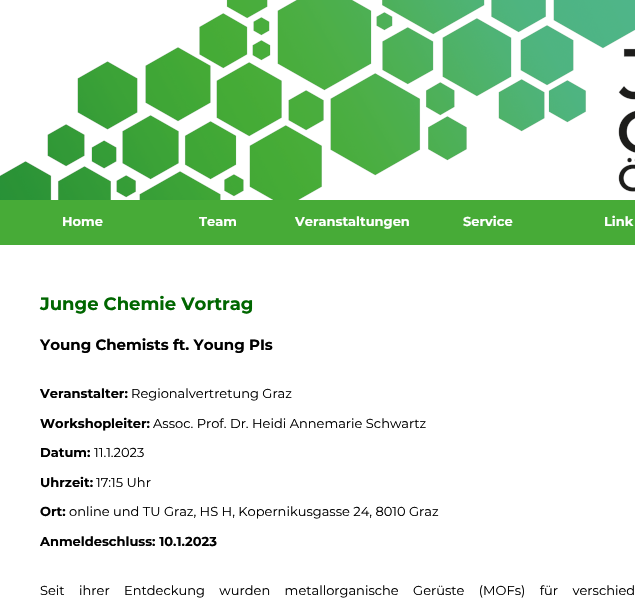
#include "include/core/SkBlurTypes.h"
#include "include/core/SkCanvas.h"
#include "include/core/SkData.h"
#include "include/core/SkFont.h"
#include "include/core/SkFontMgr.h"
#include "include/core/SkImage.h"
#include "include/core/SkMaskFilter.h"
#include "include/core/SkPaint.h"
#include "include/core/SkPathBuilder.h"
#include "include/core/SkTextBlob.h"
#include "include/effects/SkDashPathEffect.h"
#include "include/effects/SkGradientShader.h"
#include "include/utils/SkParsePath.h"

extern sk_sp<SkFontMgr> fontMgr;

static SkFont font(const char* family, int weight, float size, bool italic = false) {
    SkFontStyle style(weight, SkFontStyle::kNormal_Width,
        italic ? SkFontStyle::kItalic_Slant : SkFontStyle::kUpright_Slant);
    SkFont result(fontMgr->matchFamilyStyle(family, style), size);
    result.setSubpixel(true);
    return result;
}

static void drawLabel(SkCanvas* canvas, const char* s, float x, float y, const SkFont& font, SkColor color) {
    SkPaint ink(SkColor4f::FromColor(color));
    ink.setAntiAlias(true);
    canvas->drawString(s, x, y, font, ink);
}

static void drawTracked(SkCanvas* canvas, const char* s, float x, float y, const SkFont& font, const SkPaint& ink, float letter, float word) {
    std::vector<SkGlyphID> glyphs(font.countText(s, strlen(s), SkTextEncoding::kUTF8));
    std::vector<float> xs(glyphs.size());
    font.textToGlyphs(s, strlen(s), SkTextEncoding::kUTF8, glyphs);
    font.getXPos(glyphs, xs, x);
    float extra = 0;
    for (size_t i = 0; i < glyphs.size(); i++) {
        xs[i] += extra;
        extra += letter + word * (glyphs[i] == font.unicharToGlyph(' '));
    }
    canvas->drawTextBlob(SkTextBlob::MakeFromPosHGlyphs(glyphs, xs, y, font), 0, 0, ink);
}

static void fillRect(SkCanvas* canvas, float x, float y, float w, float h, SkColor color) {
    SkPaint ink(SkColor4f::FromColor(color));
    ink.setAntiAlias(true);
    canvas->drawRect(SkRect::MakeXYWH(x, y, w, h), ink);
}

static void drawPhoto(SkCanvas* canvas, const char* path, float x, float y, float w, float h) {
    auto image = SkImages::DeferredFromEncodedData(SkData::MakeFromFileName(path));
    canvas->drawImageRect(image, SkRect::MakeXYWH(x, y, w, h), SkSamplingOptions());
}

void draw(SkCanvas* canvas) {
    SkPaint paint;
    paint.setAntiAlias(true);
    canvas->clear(0xFFFFFFFF);
    drawPhoto(canvas, "assets/img1.png", 0, 0, 635, 200);
    fillRect(canvas, 0, 200, 635, 45, 0xFF47AB37);
    SkFont font1 = font("Montserrat", 700, 13);
    drawLabel(canvas, "Home", 62, 226, font1, 0xFFFFFFFF);
    drawLabel(canvas, "Team", 199, 226, font1, 0xFFFFFFFF);
    drawLabel(canvas, "Veranstaltungen", 295, 226, font1, 0xFFFFFFFF);
    drawLabel(canvas, "Service", 463, 226, font1, 0xFFFFFFFF);
    drawLabel(canvas, "Link", 604, 226, font1, 0xFFFFFFFF);
    SkFont font2 = font("Montserrat", 700, 18);
    drawLabel(canvas, "Junge Chemie Vortrag", 40, 310, font2, 0xFF006600);
    SkFont font3 = font("Montserrat", 700, 15);
    drawLabel(canvas, "Young Chemists ft. Young PIs", 40, 350, font3, 0xFF000000);
    drawLabel(canvas, "Veranstalter:", 40, 398, font1, 0xFF000000);
    SkFont font4 = font("Montserrat", 400, 13);
    drawLabel(canvas, "Regionalvertretung Graz", 131, 398, font4, 0xFF000000);
    drawLabel(canvas, "Workshopleiter:", 40, 428, font1, 0xFF000000);
    drawLabel(canvas, "Assoc. Prof. Dr. Heidi Annemarie Schwartz", 153, 428, font4, 0xFF000000);
    drawLabel(canvas, "Datum:", 40, 457, font1, 0xFF000000);
    drawLabel(canvas, "11.1.2023", 94, 457, font4, 0xFF000000);
    drawLabel(canvas, "Uhrzeit:", 40, 487, font1, 0xFF000000);
    drawLabel(canvas, "17:15 Uhr", 96, 487, font4, 0xFF000000);
    drawLabel(canvas, "Ort:", 40, 516, font1, 0xFF000000);
    drawLabel(canvas, "online und TU Graz, HS H, Kopernikusgasse 24, 8010 Graz", 69, 516, font4, 0xFF000000);
    drawLabel(canvas, "Anmeldeschluss: 10.1.2023", 40, 546, font1, 0xFF000000);
    paint.setColor(0xFF000000);
    drawTracked(canvas, "Seit ihrer Entdeckung wurden metallorganische Gerüste (MOFs) für verschied", 40, 595, font4, paint, 0, 11);
}
